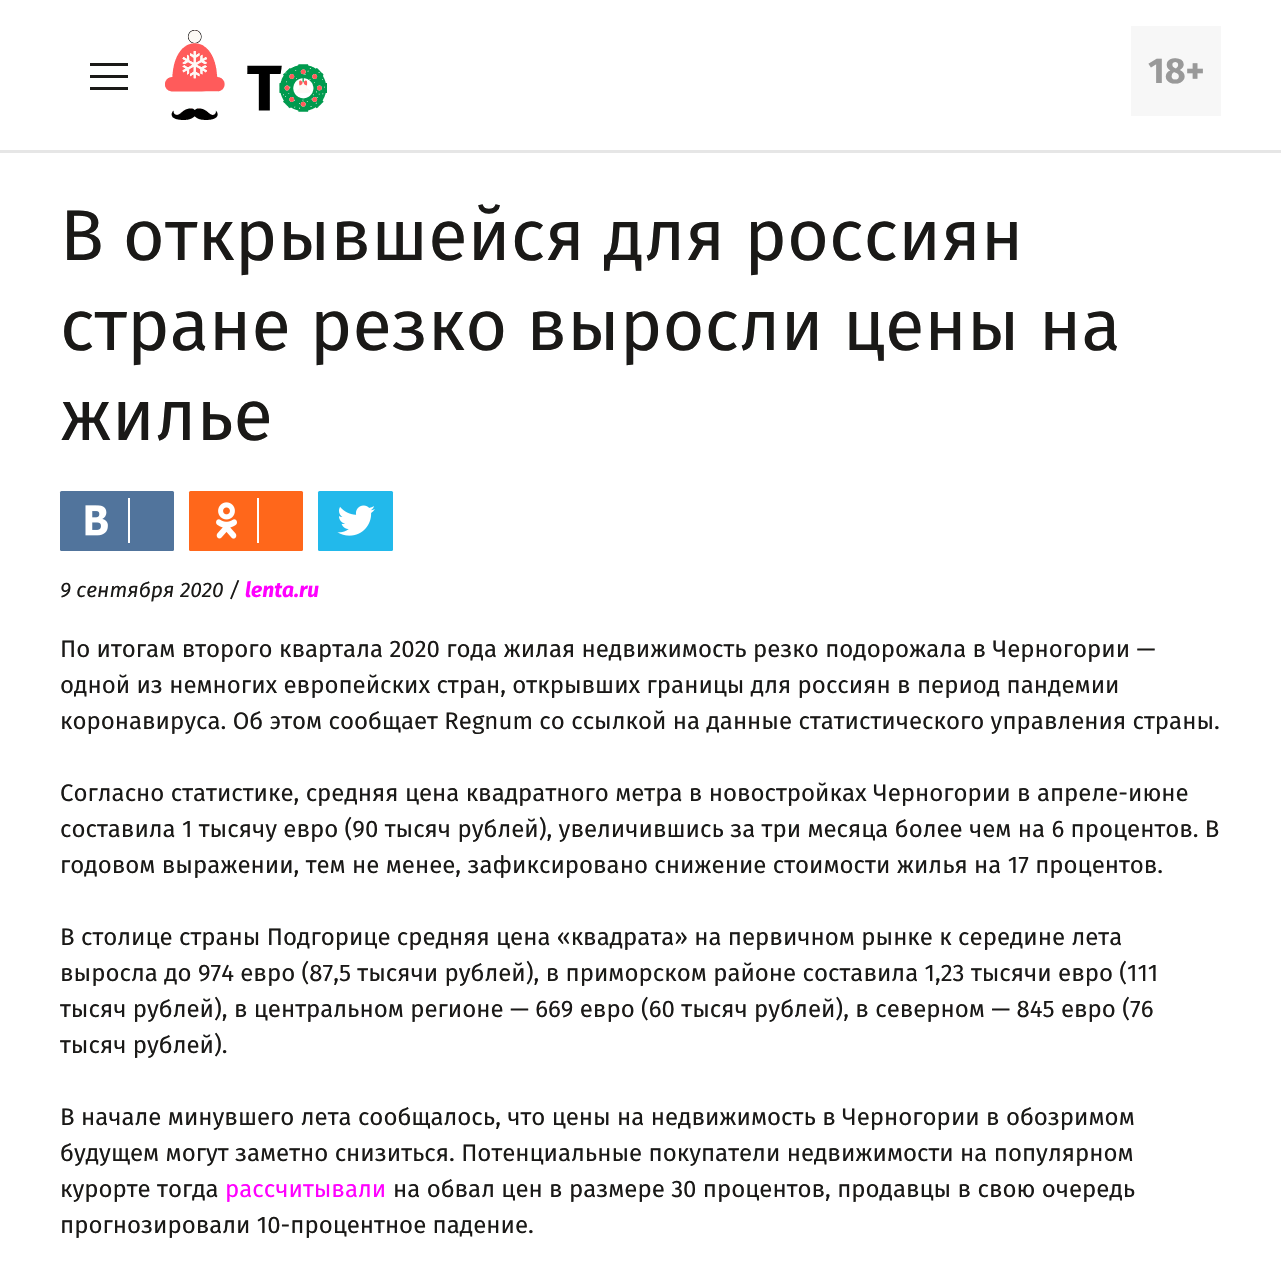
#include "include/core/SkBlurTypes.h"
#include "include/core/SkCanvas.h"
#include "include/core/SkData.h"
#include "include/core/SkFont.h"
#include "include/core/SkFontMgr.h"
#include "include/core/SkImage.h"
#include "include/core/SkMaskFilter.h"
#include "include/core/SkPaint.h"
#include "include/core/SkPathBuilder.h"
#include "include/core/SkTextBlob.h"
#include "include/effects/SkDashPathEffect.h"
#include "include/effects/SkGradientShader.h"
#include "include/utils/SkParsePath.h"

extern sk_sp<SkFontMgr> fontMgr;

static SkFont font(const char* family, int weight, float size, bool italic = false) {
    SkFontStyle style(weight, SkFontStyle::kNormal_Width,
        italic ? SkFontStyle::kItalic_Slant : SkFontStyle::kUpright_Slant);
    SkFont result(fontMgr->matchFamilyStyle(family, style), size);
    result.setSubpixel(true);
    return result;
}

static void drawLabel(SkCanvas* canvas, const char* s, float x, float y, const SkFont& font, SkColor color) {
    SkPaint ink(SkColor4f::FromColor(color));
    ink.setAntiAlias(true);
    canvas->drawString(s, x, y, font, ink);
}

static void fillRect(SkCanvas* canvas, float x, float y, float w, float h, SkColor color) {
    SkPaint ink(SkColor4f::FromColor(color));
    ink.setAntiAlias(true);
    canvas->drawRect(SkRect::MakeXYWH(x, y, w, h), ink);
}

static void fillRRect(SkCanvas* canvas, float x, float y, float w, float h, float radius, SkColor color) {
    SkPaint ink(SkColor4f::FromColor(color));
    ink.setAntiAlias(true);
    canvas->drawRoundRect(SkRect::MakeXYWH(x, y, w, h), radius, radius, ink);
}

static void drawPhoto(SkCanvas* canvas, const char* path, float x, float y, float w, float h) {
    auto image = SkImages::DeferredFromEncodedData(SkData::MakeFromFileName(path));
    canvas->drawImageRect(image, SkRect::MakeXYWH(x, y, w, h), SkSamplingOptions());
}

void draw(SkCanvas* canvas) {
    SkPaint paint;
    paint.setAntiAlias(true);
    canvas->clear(0xFFFFFFFF);
    fillRect(canvas, 0, 150, 1281, 3, 0xFFE6E6E6);
    fillRect(canvas, 90, 75, 38, 3, 0xFF1A1917);
    fillRect(canvas, 90, 63, 38, 3, 0xFF1A1917);
    fillRect(canvas, 90, 87, 38, 3, 0xFF1A1917);
    drawPhoto(canvas, "assets/img1.png", 165, 30, 162, 90);
    fillRect(canvas, 1131, 26, 90, 90, 0xFFF7F7F7);
    SkFont font1 = font("Fira Sans", 700, 36);
    drawLabel(canvas, "18+", 1148, 83, font1, 0xFF999999);
    SkFont font2 = font("Fira Sans", 400, 72);
    drawLabel(canvas, "В открывшейся для россиян", 60, 260, font2, 0xFF1A1917);
    drawLabel(canvas, "стране резко выросли цены на", 60, 350, font2, 0xFF1A1917);
    drawLabel(canvas, "жилье", 60, 440, font2, 0xFF1A1917);
    fillRRect(canvas, 60, 491, 114, 60, 1.5f, 0xFF51749C);
    drawPhoto(canvas, "assets/img2.png", 85, 505, 23, 31);
    fillRect(canvas, 128, 498, 2, 45, 0xFFFFFFFF);
    fillRRect(canvas, 189, 491, 114, 60, 1.5f, 0xFFFF671B);
    drawPhoto(canvas, "assets/img3.png", 216, 502, 21, 37);
    fillRect(canvas, 257, 498, 2, 45, 0xFFFFFFFF);
    fillRRect(canvas, 318, 491, 75, 60, 1.5f, 0xFF22B9EB);
    drawPhoto(canvas, "assets/img4.png", 337, 505, 38, 31);
    SkFont font3 = font("Fira Sans", 400, 21, true);
    drawLabel(canvas, "9 сентября 2020 /", 60, 597, font3, 0xFF1A1917);
    SkFont font4 = font("Fira Sans", 700, 21, true);
    drawLabel(canvas, "lenta.ru", 245, 597, font4, 0xFFFF00FF);
    SkFont font5 = font("Fira Sans", 400, 24);
    drawLabel(canvas, "По итогам второго квартала 2020 года жилая недвижимость резко подорожала в Черногории —", 60, 657, font5, 0xFF1A1917);
    drawLabel(canvas, "одной из немногих европейских стран, открывших границы для россиян в период пандемии", 60, 693, font5, 0xFF1A1917);
    drawLabel(canvas, "коронавируса. Об этом сообщает Regnum со ссылкой на данные статистического управления страны.", 60, 729, font5, 0xFF1A1917);
    drawLabel(canvas, "Согласно статистике, средняя цена квадратного метра в новостройках Черногории в апреле-июне", 60, 801, font5, 0xFF1A1917);
    drawLabel(canvas, "составила 1 тысячу евро (90 тысяч рублей), увеличившись за три месяца более чем на 6 процентов. В", 60, 837, font5, 0xFF1A1917);
    drawLabel(canvas, "годовом выражении, тем не менее, зафиксировано снижение стоимости жилья на 17 процентов.", 60, 873, font5, 0xFF1A1917);
    drawLabel(canvas, "В столице страны Подгорице средняя цена «квадрата» на первичном рынке к середине лета", 60, 945, font5, 0xFF1A1917);
    drawLabel(canvas, "выросла до 974 евро (87,5 тысячи рублей), в приморском районе составила 1,23 тысячи евро (111", 60, 981, font5, 0xFF1A1917);
    drawLabel(canvas, "тысяч рублей), в центральном регионе — 669 евро (60 тысяч рублей), в северном — 845 евро (76", 60, 1017, font5, 0xFF1A1917);
    drawLabel(canvas, "тысяч рублей).", 60, 1053, font5, 0xFF1A1917);
    drawLabel(canvas, "В начале минувшего лета сообщалось, что цены на недвижимость в Черногории в обозримом", 60, 1125, font5, 0xFF1A1917);
    drawLabel(canvas, "будущем могут заметно снизиться. Потенциальные покупатели недвижимости на популярном", 60, 1161, font5, 0xFF1A1917);
    drawLabel(canvas, "курорте тогда", 60, 1197, font5, 0xFF1A1917);
    drawLabel(canvas, "рассчитывали", 225, 1197, font5, 0xFFFF00FF);
    drawLabel(canvas, "на обвал цен в размере 30 процентов, продавцы в свою очередь", 393, 1197, font5, 0xFF1A1917);
    drawLabel(canvas, "прогнозировали 10-процентное падение.", 60, 1233, font5, 0xFF1A1917);
}
